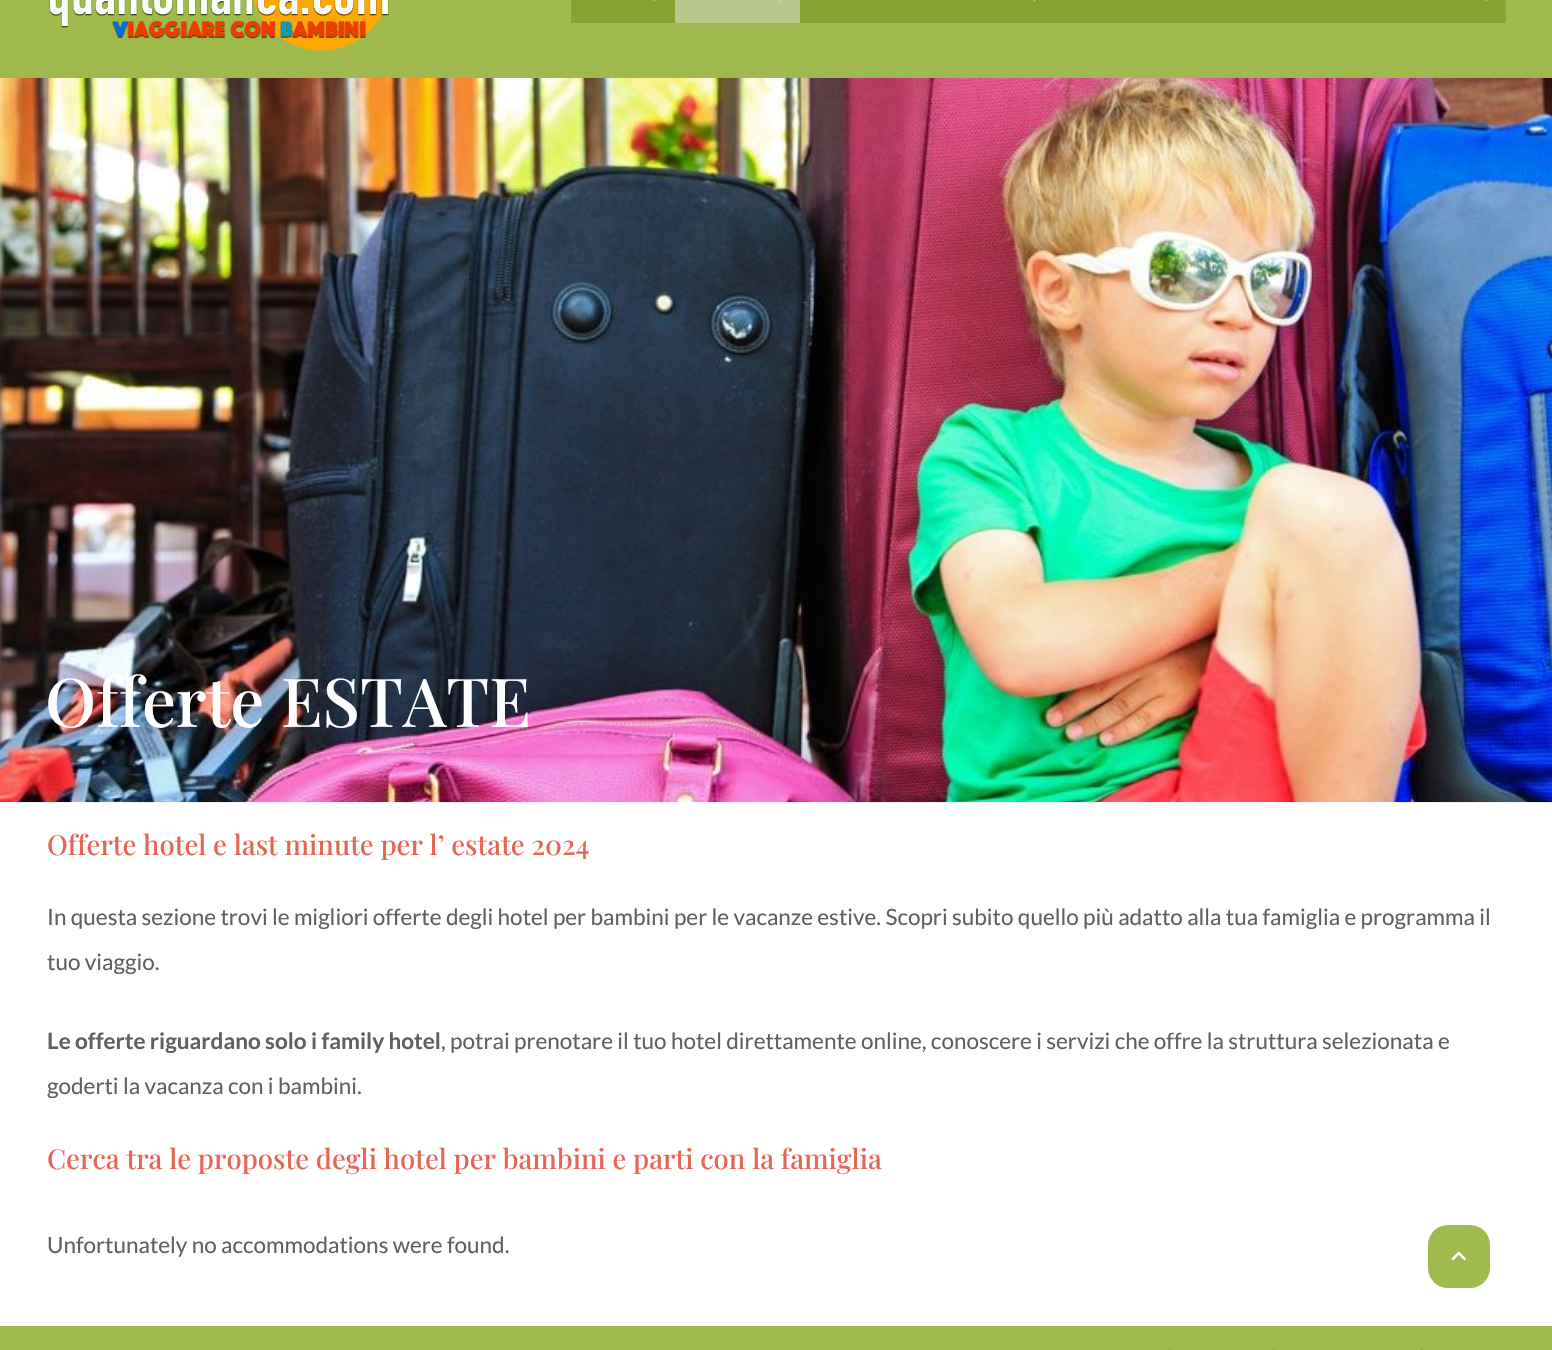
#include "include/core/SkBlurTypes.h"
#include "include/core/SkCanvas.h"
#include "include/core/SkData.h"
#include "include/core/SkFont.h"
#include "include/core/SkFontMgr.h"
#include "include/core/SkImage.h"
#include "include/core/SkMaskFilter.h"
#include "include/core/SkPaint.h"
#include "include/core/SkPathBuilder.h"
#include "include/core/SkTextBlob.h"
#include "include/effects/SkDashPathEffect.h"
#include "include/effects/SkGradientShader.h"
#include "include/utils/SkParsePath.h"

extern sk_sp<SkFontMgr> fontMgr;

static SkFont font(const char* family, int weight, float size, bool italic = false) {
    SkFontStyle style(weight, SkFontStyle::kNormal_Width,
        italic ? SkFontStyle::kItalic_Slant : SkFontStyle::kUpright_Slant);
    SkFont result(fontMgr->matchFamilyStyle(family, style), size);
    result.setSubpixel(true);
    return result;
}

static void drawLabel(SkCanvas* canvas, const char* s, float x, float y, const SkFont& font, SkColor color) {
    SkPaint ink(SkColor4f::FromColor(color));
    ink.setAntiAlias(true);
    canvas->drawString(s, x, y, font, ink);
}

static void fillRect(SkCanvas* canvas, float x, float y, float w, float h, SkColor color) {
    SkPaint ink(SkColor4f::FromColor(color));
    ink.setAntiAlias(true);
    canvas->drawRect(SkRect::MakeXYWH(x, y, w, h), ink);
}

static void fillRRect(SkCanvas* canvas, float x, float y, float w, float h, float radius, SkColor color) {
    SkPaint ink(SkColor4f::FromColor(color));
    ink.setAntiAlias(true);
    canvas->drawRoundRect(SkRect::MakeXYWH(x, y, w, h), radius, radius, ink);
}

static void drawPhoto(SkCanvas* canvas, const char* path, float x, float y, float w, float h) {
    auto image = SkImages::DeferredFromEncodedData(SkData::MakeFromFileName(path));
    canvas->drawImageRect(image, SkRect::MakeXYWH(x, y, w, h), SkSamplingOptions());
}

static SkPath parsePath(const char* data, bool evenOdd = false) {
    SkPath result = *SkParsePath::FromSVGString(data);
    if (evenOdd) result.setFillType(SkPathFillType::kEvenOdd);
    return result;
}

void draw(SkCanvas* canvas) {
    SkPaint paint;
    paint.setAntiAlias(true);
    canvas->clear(0xFFFFFFFF);
    fillRect(canvas, 0, 0, 1552, 78, 0xFFA0B94E);
    drawPhoto(canvas, "assets/img1.png", 49, 0, 340, 51);
    fillRect(canvas, 571, 0, 935, 23, 0xFF88A332);
    paint.setColor(0xFFFFFFFF);
    canvas->drawPath(parsePath("M658-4L654.5 1L651-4Z"), paint);
    fillRect(canvas, 675, 0, 125, 23, 0xFFBAC88E);
    canvas->drawPath(parsePath("M783-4L779.5 1L776-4Z"), paint);
    canvas->drawPath(parsePath("M1038-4L1034.5 1L1031-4Z"), paint);
    canvas->drawPath(parsePath("M1489.5-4L1486 1L1482.5-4Z"), paint);
    drawPhoto(canvas, "assets/img2.png", 0, 78, 1552, 725);
    SkFont font1 = font("Playfair Display", 500, 67.5f);
    drawLabel(canvas, "Offerte ESTATE", 45, 727, font1, 0xFFFFFFFF);
    SkFont font2 = font("Playfair Display", 500, 27.5f);
    drawLabel(canvas, "Offerte hotel e last minute per l’ estate 2024", 47, 855, font2, 0xFFE36756);
    SkFont font3 = font("Lato", 400, 22.5f);
    drawLabel(canvas, "In questa sezione trovi le migliori offerte degli hotel per bambini per le vacanze estive. Scopri subito quello più adatto alla tua famiglia e programma il", 47, 925, font3, 0xFF606060);
    drawLabel(canvas, "tuo viaggio.", 47, 970, font3, 0xFF606060);
    SkFont font4 = font("Lato", 700, 22.5f);
    drawLabel(canvas, "Le offerte riguardano solo i family hotel", 47, 1049, font4, 0xFF606060);
    drawLabel(canvas, ", potrai prenotare il tuo hotel direttamente online, conoscere i servizi che offre la struttura selezionata e", 441, 1049, font3, 0xFF606060);
    drawLabel(canvas, "goderti la vacanza con i bambini.", 47, 1094, font3, 0xFF606060);
    drawLabel(canvas, "Cerca tra le proposte degli hotel per bambini e parti con la famiglia", 47, 1169, font2, 0xFFE36756);
    drawLabel(canvas, "Unfortunately no accommodations were found.", 47, 1253, font3, 0xFF606060);
    fillRRect(canvas, 1428, 1225, 62, 63, 20, 0xFFA0BA4E);
    drawPhoto(canvas, "assets/img3.png", 1451, 1251, 16, 10);
    fillRect(canvas, 0, 1326, 1552, 24, 0xFFA0B94E);
    fillRect(canvas, 1169, 1349, 1, 1, 0xFF889D42);
    fillRect(canvas, 1273, 1349, 1, 1, 0xFF889D42);
    fillRect(canvas, 1421, 1349, 1, 1, 0xFF889D42);
}
